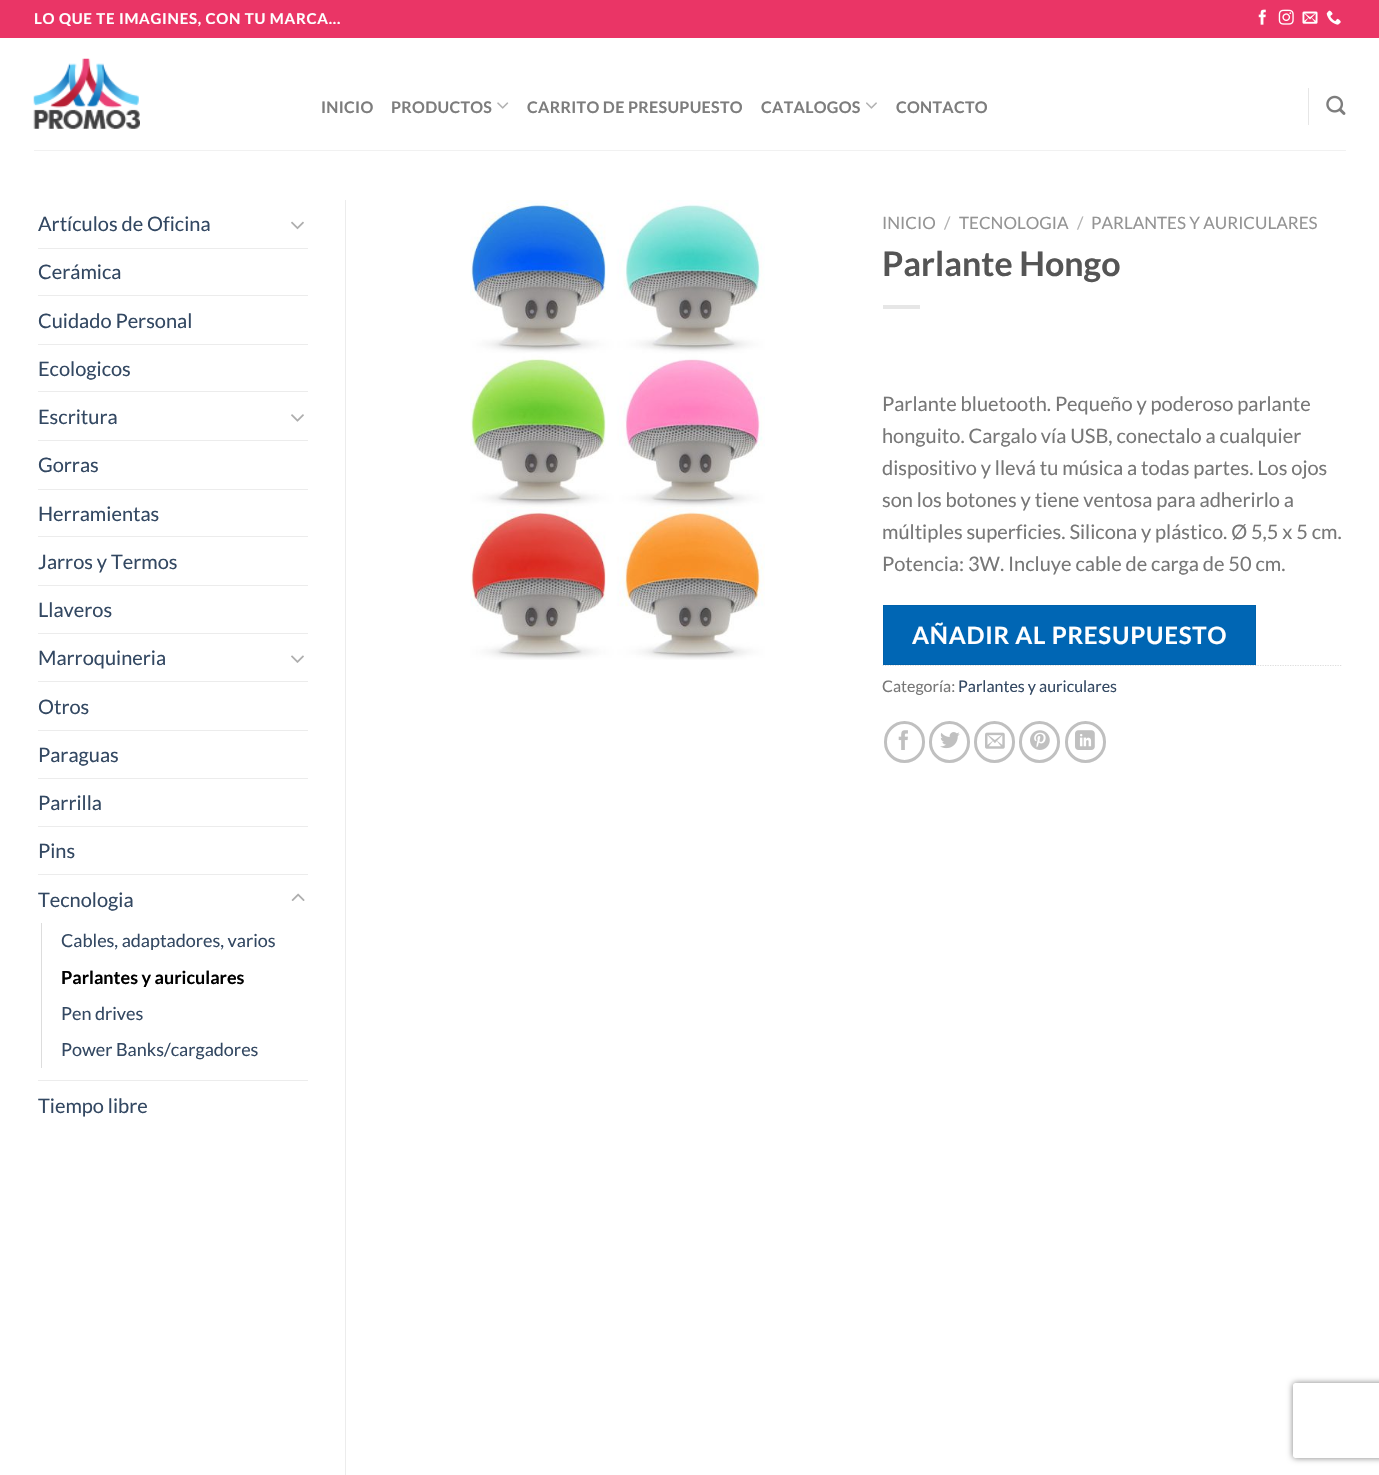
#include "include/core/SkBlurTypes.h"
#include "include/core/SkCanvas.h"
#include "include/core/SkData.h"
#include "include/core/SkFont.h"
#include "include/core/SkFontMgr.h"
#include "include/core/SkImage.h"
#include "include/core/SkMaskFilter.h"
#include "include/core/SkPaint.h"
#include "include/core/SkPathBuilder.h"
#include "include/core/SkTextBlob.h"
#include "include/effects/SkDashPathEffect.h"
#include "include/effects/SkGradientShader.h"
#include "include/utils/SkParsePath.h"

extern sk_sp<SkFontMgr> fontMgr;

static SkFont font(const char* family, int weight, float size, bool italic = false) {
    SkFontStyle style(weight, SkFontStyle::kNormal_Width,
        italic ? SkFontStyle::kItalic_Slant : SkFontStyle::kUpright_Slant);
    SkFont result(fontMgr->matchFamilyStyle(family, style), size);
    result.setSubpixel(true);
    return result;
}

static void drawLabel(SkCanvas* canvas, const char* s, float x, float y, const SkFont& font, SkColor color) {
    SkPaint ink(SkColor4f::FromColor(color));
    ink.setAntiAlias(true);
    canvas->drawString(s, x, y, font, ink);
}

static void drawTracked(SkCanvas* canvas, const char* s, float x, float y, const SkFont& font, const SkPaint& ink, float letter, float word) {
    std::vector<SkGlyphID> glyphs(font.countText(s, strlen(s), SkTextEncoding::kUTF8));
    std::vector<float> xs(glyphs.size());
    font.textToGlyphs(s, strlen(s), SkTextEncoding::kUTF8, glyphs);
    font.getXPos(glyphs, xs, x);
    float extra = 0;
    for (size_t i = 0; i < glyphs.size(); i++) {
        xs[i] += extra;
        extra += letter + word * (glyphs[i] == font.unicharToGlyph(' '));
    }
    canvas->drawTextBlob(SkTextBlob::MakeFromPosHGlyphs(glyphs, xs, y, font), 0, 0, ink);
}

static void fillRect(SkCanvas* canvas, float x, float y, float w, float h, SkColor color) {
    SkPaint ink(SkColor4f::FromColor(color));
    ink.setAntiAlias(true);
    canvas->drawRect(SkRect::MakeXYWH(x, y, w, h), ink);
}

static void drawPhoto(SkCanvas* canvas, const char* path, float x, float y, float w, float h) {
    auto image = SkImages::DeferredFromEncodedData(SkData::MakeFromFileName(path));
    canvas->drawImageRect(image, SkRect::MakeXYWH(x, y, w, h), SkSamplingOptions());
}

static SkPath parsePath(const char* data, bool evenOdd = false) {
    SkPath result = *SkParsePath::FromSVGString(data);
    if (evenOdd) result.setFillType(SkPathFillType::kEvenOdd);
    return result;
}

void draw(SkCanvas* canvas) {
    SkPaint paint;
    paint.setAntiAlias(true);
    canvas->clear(0xFFFFFFFF);
    fillRect(canvas, 0, 0, 1379, 38, 0xFFEA3566);
    SkFont font1 = font("Lato", 700, 15);
    paint.setColor(0xFFFFFFFF);
    drawTracked(canvas, "LO QUE TE IMAGINES, CON TU MARCA...", 34, 24, font1, paint, 0.75f, 0);
    drawPhoto(canvas, "assets/img1.png", 1258, 9, 8, 16);
    drawPhoto(canvas, "assets/img2.png", 1278, 9, 16, 16);
    drawPhoto(canvas, "assets/img3.png", 1302, 11, 16, 13);
    drawPhoto(canvas, "assets/img4.png", 1326, 10, 15, 15);
    drawPhoto(canvas, "assets/img5.png", 33, 58, 107, 71);
    SkFont font2 = font("Lato", 700, 16);
    paint.setColor(0xFF7D7D7D);
    drawTracked(canvas, "INICIO", 321, 113, font2, paint, 0.3f, 0);
    drawTracked(canvas, "PRODUCTOS", 391, 113, font2, paint, 0.3f, 0);
    drawPhoto(canvas, "assets/img6.png", 497, 102, 12, 7);
    drawTracked(canvas, "CARRITO DE PRESUPUESTO", 527, 113, font2, paint, 0.3f, 0);
    drawTracked(canvas, "CATALOGOS", 761, 113, font2, paint, 0.3f, 0);
    drawPhoto(canvas, "assets/img7.png", 866, 102, 11, 7);
    drawTracked(canvas, "CONTACTO", 896, 113, font2, paint, 0.3f, 0);
    fillRect(canvas, 1308, 88, 1, 37, 0xFFE6E6E6);
    drawPhoto(canvas, "assets/img8.png", 1326, 95, 20, 20);
    fillRect(canvas, 34, 150, 1312, 1, 0xFFF1F1F1);
    SkFont font3 = font("Lato", 400, 20);
    drawLabel(canvas, "Artículos de Oficina", 38, 231, font3, 0xFF334862);
    drawPhoto(canvas, "assets/img9.png", 291, 221, 13, 9);
    fillRect(canvas, 38, 248, 270, 1, 0xFFECECEC);
    drawLabel(canvas, "Cerámica", 38, 279, font3, 0xFF334862);
    fillRect(canvas, 38, 295, 270, 1, 0xFFECECEC);
    drawLabel(canvas, "Cuidado Personal", 38, 328, font3, 0xFF334862);
    fillRect(canvas, 38, 344, 270, 1, 0xFFECECEC);
    drawLabel(canvas, "Ecologicos", 38, 376, font3, 0xFF334862);
    fillRect(canvas, 38, 391, 270, 1, 0xFFECECEC);
    drawLabel(canvas, "Escritura", 38, 424, font3, 0xFF334862);
    drawPhoto(canvas, "assets/img10.png", 291, 414, 13, 8);
    fillRect(canvas, 38, 440, 270, 1, 0xFFECECEC);
    drawLabel(canvas, "Gorras", 38, 472, font3, 0xFF334862);
    fillRect(canvas, 38, 489, 270, 1, 0xFFECECEC);
    drawLabel(canvas, "Herramientas", 38, 521, font3, 0xFF334862);
    fillRect(canvas, 38, 536, 270, 1, 0xFFECECEC);
    drawLabel(canvas, "Jarros y Termos", 38, 569, font3, 0xFF334862);
    fillRect(canvas, 38, 585, 270, 1, 0xFFECECEC);
    drawLabel(canvas, "Llaveros", 38, 617, font3, 0xFF334862);
    fillRect(canvas, 38, 633, 270, 1, 0xFFECECEC);
    drawLabel(canvas, "Marroquineria", 38, 665, font3, 0xFF334862);
    drawPhoto(canvas, "assets/img11.png", 291, 655, 13, 8);
    fillRect(canvas, 38, 681, 270, 1, 0xFFECECEC);
    drawLabel(canvas, "Otros", 38, 714, font3, 0xFF334862);
    fillRect(canvas, 38, 730, 270, 1, 0xFFECECEC);
    drawLabel(canvas, "Paraguas", 38, 762, font3, 0xFF334862);
    fillRect(canvas, 38, 778, 270, 1, 0xFFECECEC);
    drawLabel(canvas, "Parrilla", 38, 810, font3, 0xFF334862);
    fillRect(canvas, 38, 826, 270, 1, 0xFFECECEC);
    drawLabel(canvas, "Pins", 38, 858, font3, 0xFF334862);
    fillRect(canvas, 38, 874, 270, 1, 0xFFECECEC);
    drawLabel(canvas, "Tecnologia", 38, 907, font3, 0xFF334862);
    drawPhoto(canvas, "assets/img12.png", 291, 893, 14, 8);
    fillRect(canvas, 41, 923, 1, 145, 0xFFDDDDDD);
    SkFont font4 = font("Lato", 400, 18);
    drawLabel(canvas, "Cables, adaptadores, varios", 61, 947, font4, 0xFF334862);
    SkFont font5 = font("Lato", 700, 18);
    drawLabel(canvas, "Parlantes y auriculares", 61, 984, font5, 0xFF000000);
    drawLabel(canvas, "Pen drives", 61, 1020, font4, 0xFF334862);
    drawLabel(canvas, "Power Banks/cargadores", 61, 1056, font4, 0xFF334862);
    fillRect(canvas, 38, 1080, 270, 1, 0xFFECECEC);
    drawLabel(canvas, "Tiempo libre", 38, 1113, font3, 0xFF334862);
    fillRect(canvas, 345, 200, 1, 1275, 0xFFECECEC);
    drawPhoto(canvas, "assets/img13.png", 470, 200, 295, 460);
    SkFont font6 = font("Lato", 400, 17);
    drawLabel(canvas, "INICIO", 882, 229, font6, 0xFF949494);
    drawLabel(canvas, "/", 944, 229, font6, 0xFFB2B2B2);
    drawLabel(canvas, "TECNOLOGIA", 959, 229, font6, 0xFF949494);
    drawLabel(canvas, "/", 1077, 229, font6, 0xFFB2B2B2);
    drawLabel(canvas, "PARLANTES Y AURICULARES", 1091, 229, font6, 0xFF949494);
    SkFont font7 = font("Lato", 700, 34);
    drawLabel(canvas, "Parlante Hongo", 882, 276, font7, 0xFF555555);
    fillRect(canvas, 883, 305, 37, 4, 0xFFE6E6E6);
    drawLabel(canvas, "Parlante bluetooth. Pequeño y poderoso parlante", 882, 411, font3, 0xFF777777);
    drawLabel(canvas, "honguito. Cargalo vía USB, conectalo a cualquier", 882, 443, font3, 0xFF777777);
    drawLabel(canvas, "dispositivo y llevá tu música a todas partes. Los ojos", 882, 475, font3, 0xFF777777);
    drawLabel(canvas, "son los botones y tiene ventosa para adherirlo a", 882, 507, font3, 0xFF777777);
    drawLabel(canvas, "múltiples superficies. Silicona y plástico. Ø 5,5 x 5 cm.", 882, 539, font3, 0xFF777777);
    drawLabel(canvas, "Potencia: 3W. Incluye cable de carga de 50 cm.", 882, 571, font3, 0xFF777777);
    paint.setStroke(true);
    paint.setStrokeWidth(1.2f);
    paint.setColor(0xFFDDDDDD);
    paint.setPathEffect(SkDashPathEffect::Make({{1.25f, 1.25f}}, 0));
    canvas->drawPath(parsePath("M882.5 665.5H1342.5"), paint);
    paint.setPathEffect(nullptr);
    paint.setStroke(false);
    paint.setColor(0xFF0066B4);
    canvas->drawRect(SkRect::MakeXYWH(883.5f, 605.5f, 372, 59), paint);
    paint.setStroke(true);
    paint.setStrokeWidth(1);
    paint.setColor(0xFF0061AB);
    canvas->drawRect(SkRect::MakeXYWH(883.5f, 605.5f, 372, 59), paint);
    SkFont font8 = font("Lato", 700, 24);
    paint.setStroke(false);
    paint.setColor(0xFFFFFFFF);
    drawTracked(canvas, "AÑADIR AL PRESUPUESTO", 912, 644, font8, paint, 0.75f, 0);
    SkFont font9 = font("Lato", 400, 16);
    drawLabel(canvas, "Categoría:", 882, 692, font9, 0xFF777777);
    drawLabel(canvas, "Parlantes y auriculares", 958, 692, font9, 0xFF334862);
    paint.setStroke(true);
    paint.setStrokeWidth(3);
    paint.setColor(0xFFC0C0C0);
    canvas->drawRoundRect(SkRect::MakeXYWH(885.5f, 722.5f, 38, 39), 19, 19, paint);
    drawPhoto(canvas, "assets/img14.png", 898, 730, 10, 20);
    canvas->drawRoundRect(SkRect::MakeXYWH(930.5f, 722.5f, 38, 39), 19, 19, paint);
    drawPhoto(canvas, "assets/img15.png", 940, 732, 20, 17);
    canvas->drawRoundRect(SkRect::MakeXYWH(975.5f, 722.5f, 38, 39), 19, 19, paint);
    drawPhoto(canvas, "assets/img16.png", 985, 732, 20, 17);
    canvas->drawRoundRect(SkRect::MakeXYWH(1020.5f, 722.5f, 38, 39), 19, 19, paint);
    drawPhoto(canvas, "assets/img17.png", 1030, 730, 20, 20);
    canvas->drawRoundRect(SkRect::MakeXYWH(1066.5f, 722.5f, 38, 39), 19, 19, paint);
    drawPhoto(canvas, "assets/img18.png", 1075, 730, 20, 20);
    canvas->save();
    canvas->clipPath(parsePath("M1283 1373H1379V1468H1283ZM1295.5 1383H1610.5C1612 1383 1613 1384 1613 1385.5V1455.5C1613 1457 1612 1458 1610.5 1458H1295.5C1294 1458 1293 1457 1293 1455.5V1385.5C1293 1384 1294 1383 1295.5 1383Z", true), true);
    paint.setStroke(false);
    paint.setColor(0xFF808080);
    paint.setMaskFilter(SkMaskFilter::MakeBlur(kNormal_SkBlurStyle, 3));
    canvas->drawRoundRect(SkRect::MakeXYWH(1293, 1383, 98, 75), 2.5f, 2.5f, paint);
    paint.setMaskFilter(nullptr);
    canvas->restore();
}
